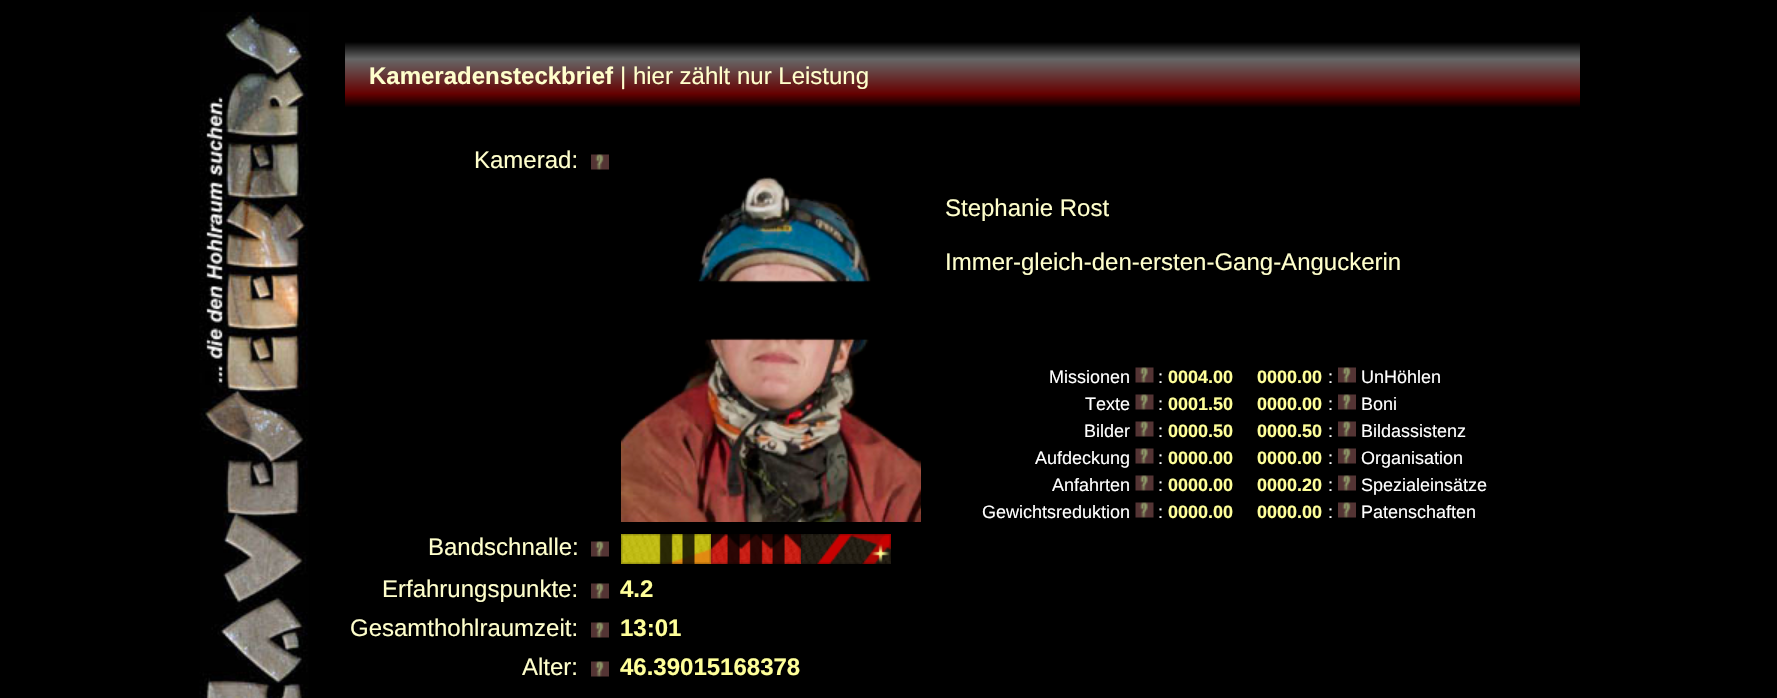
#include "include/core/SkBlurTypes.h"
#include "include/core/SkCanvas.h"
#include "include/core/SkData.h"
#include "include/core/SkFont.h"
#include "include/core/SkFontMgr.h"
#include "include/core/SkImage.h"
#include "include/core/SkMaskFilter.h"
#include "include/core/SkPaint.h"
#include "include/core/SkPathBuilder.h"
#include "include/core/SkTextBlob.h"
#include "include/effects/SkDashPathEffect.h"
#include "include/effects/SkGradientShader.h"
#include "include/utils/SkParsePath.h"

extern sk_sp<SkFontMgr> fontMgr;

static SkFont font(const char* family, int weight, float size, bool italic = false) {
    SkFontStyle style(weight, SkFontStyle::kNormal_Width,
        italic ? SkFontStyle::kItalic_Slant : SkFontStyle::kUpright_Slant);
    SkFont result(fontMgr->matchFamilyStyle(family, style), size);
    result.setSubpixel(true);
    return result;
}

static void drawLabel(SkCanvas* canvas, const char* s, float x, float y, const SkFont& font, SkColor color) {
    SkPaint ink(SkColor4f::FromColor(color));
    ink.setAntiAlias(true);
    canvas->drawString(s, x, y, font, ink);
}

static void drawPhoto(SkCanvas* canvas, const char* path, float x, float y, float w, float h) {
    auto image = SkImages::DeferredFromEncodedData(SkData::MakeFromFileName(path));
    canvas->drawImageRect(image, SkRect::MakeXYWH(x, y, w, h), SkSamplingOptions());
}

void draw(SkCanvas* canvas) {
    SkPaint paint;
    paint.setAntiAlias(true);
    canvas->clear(0xFF000000);
    drawPhoto(canvas, "assets/img1.png", 199, 12, 110, 686);
    {
        const SkColor colors[] = {0xFF000000, 0xFF666666, 0xFF660000, 0xFF000000};
        const float stops[] = {0, 0.25f, 0.75f, 0.95f};
        const SkPoint ends[] = {{962, 42}, {962, 111}};
        paint.setShader(SkGradientShader::MakeLinear(ends, colors, stops, 4, SkTileMode::kClamp));
        paint.setAlpha(255);
    }
    canvas->drawRect(SkRect::MakeXYWH(345, 42, 1235, 65), paint);
    SkFont font1 = font("Liberation Sans", 700, 24);
    drawLabel(canvas, "Kameradensteckbrief", 369, 84, font1, 0xFFFFFFCC);
    SkFont font2 = font("Liberation Sans", 400, 24);
    drawLabel(canvas, "| hier zählt nur Leistung", 620, 84, font2, 0xFFFFFFCC);
    drawLabel(canvas, "Kamerad:", 474, 168, font2, 0xFFFFFFCC);
    drawPhoto(canvas, "assets/img2.png", 591, 154, 18, 16);
    drawPhoto(canvas, "assets/img3.png", 621, 177, 300, 345);
    drawLabel(canvas, "Stephanie Rost", 945, 216, font2, 0xFFFFFFCC);
    drawLabel(canvas, "Immer-gleich-den-ersten-Gang-Anguckerin", 945, 270, font2, 0xFFFFFFCC);
    SkFont font3 = font("Liberation Sans", 400, 18);
    drawLabel(canvas, "Missionen", 1049, 383, font3, 0xFFFFFFFF);
    drawPhoto(canvas, "assets/img4.png", 1135, 367, 19, 16);
    drawLabel(canvas, ":", 1158, 383, font3, 0xFFFFFFFF);
    SkFont font4 = font("Liberation Sans", 700, 18);
    drawLabel(canvas, "0004.00", 1168, 383, font4, 0xFFFFFF99);
    drawLabel(canvas, "0000.00", 1257, 383, font4, 0xFFFFFF99);
    drawLabel(canvas, ":", 1328, 383, font3, 0xFFFFFFFF);
    drawPhoto(canvas, "assets/img2.png", 1338, 367, 18, 16);
    drawLabel(canvas, "UnHöhlen", 1361, 383, font3, 0xFFFFFFFF);
    drawLabel(canvas, "Texte", 1085, 410, font3, 0xFFFFFFFF);
    drawPhoto(canvas, "assets/img4.png", 1135, 394, 19, 16);
    drawLabel(canvas, ":", 1158, 410, font3, 0xFFFFFFFF);
    drawLabel(canvas, "0001.50", 1168, 410, font4, 0xFFFFFF99);
    drawLabel(canvas, "0000.00", 1257, 410, font4, 0xFFFFFF99);
    drawLabel(canvas, ":", 1328, 410, font3, 0xFFFFFFFF);
    drawPhoto(canvas, "assets/img2.png", 1338, 394, 18, 16);
    drawLabel(canvas, "Boni", 1361, 410, font3, 0xFFFFFFFF);
    drawLabel(canvas, "Bilder", 1084, 437, font3, 0xFFFFFFFF);
    drawPhoto(canvas, "assets/img4.png", 1135, 421, 19, 16);
    drawLabel(canvas, ":", 1158, 437, font3, 0xFFFFFFFF);
    drawLabel(canvas, "0000.50", 1168, 437, font4, 0xFFFFFF99);
    drawLabel(canvas, "0000.50", 1257, 437, font4, 0xFFFFFF99);
    drawLabel(canvas, ":", 1328, 437, font3, 0xFFFFFFFF);
    drawPhoto(canvas, "assets/img2.png", 1338, 421, 18, 16);
    drawLabel(canvas, "Bildassistenz", 1361, 437, font3, 0xFFFFFFFF);
    drawLabel(canvas, "Aufdeckung", 1035, 464, font3, 0xFFFFFFFF);
    drawPhoto(canvas, "assets/img4.png", 1135, 448, 19, 16);
    drawLabel(canvas, ":", 1158, 464, font3, 0xFFFFFFFF);
    drawLabel(canvas, "0000.00", 1168, 464, font4, 0xFFFFFF99);
    drawLabel(canvas, "0000.00", 1257, 464, font4, 0xFFFFFF99);
    drawLabel(canvas, ":", 1328, 464, font3, 0xFFFFFFFF);
    drawPhoto(canvas, "assets/img2.png", 1338, 448, 18, 16);
    drawLabel(canvas, "Organisation", 1361, 464, font3, 0xFFFFFFFF);
    drawLabel(canvas, "Anfahrten", 1052, 491, font3, 0xFFFFFFFF);
    drawPhoto(canvas, "assets/img4.png", 1135, 475, 19, 16);
    drawLabel(canvas, ":", 1158, 491, font3, 0xFFFFFFFF);
    drawLabel(canvas, "0000.00", 1168, 491, font4, 0xFFFFFF99);
    drawLabel(canvas, "0000.20", 1257, 491, font4, 0xFFFFFF99);
    drawLabel(canvas, ":", 1328, 491, font3, 0xFFFFFFFF);
    drawPhoto(canvas, "assets/img2.png", 1338, 475, 18, 16);
    drawLabel(canvas, "Spezialeinsätze", 1361, 491, font3, 0xFFFFFFFF);
    drawLabel(canvas, "Gewichtsreduktion", 982, 518, font3, 0xFFFFFFFF);
    drawPhoto(canvas, "assets/img4.png", 1135, 502, 19, 16);
    drawLabel(canvas, ":", 1158, 518, font3, 0xFFFFFFFF);
    drawLabel(canvas, "0000.00", 1168, 518, font4, 0xFFFFFF99);
    drawLabel(canvas, "0000.00", 1257, 518, font4, 0xFFFFFF99);
    drawLabel(canvas, ":", 1328, 518, font3, 0xFFFFFFFF);
    drawPhoto(canvas, "assets/img2.png", 1338, 502, 18, 16);
    drawLabel(canvas, "Patenschaften", 1361, 518, font3, 0xFFFFFFFF);
    drawLabel(canvas, "Bandschnalle:", 428, 555, font2, 0xFFFFFFCC);
    drawPhoto(canvas, "assets/img2.png", 591, 541, 18, 16);
    drawPhoto(canvas, "assets/img5.png", 621, 534, 90, 30);
    drawPhoto(canvas, "assets/img6.png", 711, 534, 90, 30);
    drawPhoto(canvas, "assets/img7.png", 801, 534, 90, 30);
    drawLabel(canvas, "Erfahrungspunkte:", 382, 597, font2, 0xFFFFFFCC);
    drawPhoto(canvas, "assets/img2.png", 591, 583, 18, 16);
    drawLabel(canvas, "4.2", 620, 597, font1, 0xFFFFFF99);
    drawLabel(canvas, "Gesamthohlraumzeit:", 350, 636, font2, 0xFFFFFFCC);
    drawPhoto(canvas, "assets/img2.png", 591, 622, 18, 16);
    drawLabel(canvas, "13:01", 620, 636, font1, 0xFFFFFF99);
    drawLabel(canvas, "Alter:", 522, 675, font2, 0xFFFFFFCC);
    drawPhoto(canvas, "assets/img2.png", 591, 661, 18, 16);
    drawLabel(canvas, "46.39015168378", 620, 675, font1, 0xFFFFFF99);
}
